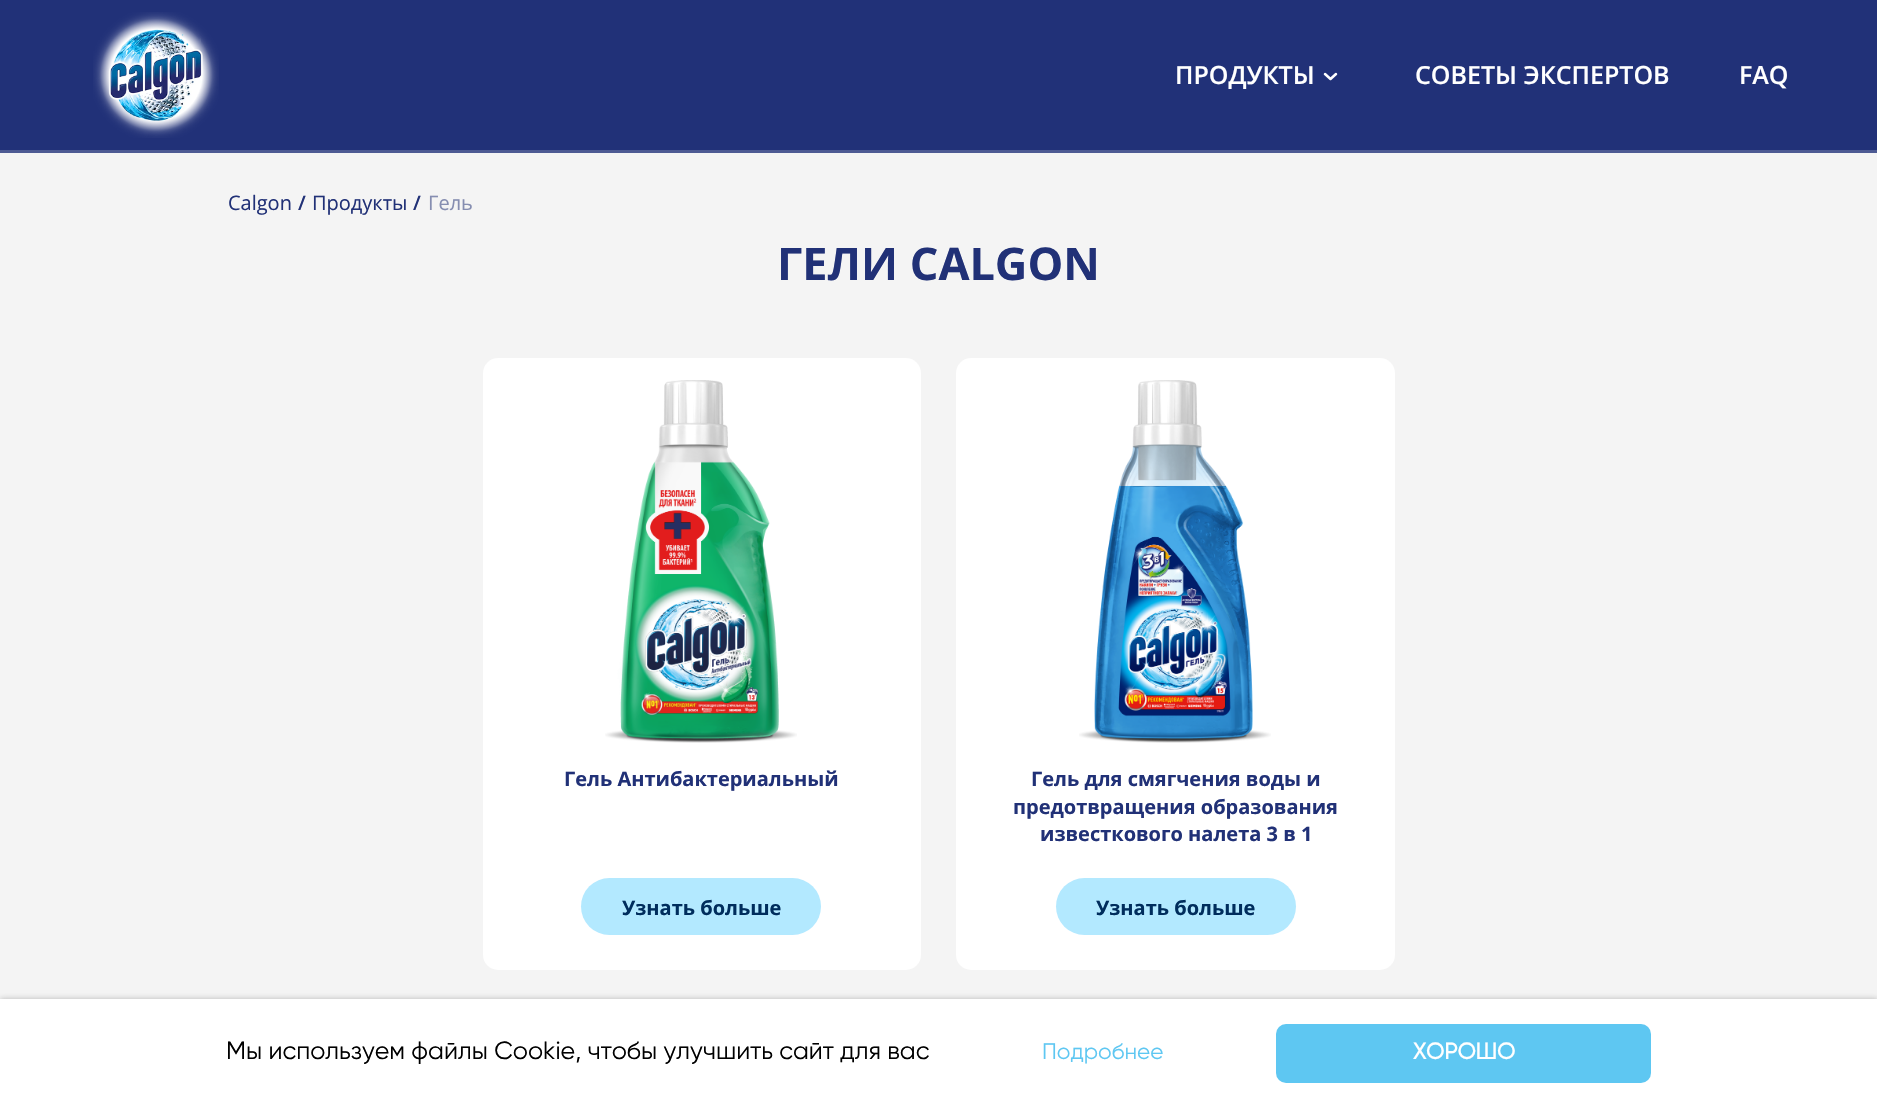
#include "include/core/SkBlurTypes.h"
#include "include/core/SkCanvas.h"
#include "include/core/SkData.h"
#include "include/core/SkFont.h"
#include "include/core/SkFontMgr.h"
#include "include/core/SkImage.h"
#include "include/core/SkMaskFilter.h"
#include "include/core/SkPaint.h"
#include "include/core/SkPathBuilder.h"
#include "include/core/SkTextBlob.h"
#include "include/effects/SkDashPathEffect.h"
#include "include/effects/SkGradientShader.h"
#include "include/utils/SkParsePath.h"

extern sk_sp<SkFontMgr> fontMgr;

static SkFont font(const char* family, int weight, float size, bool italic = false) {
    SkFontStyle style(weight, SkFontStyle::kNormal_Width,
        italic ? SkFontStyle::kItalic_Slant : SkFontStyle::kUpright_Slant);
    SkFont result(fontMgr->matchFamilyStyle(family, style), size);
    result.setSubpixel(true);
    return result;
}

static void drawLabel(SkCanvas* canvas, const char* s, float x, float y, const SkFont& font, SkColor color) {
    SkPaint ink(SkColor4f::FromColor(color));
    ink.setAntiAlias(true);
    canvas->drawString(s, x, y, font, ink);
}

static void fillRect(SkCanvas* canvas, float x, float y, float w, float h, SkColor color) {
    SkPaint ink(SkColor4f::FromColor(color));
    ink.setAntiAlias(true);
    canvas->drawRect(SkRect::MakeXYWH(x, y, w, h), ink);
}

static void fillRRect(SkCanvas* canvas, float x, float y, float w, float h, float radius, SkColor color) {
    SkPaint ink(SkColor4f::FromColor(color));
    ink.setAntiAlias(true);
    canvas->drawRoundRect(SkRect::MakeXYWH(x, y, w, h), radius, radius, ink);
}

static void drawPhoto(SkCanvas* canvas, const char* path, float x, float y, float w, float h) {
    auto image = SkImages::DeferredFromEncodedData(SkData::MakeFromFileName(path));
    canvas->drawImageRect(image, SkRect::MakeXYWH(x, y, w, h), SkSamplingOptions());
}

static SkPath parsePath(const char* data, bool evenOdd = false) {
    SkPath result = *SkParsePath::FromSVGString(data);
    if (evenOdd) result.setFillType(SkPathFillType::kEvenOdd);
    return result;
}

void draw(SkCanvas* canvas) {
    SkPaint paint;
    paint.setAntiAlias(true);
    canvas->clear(0xFFF4F4F4);
    fillRect(canvas, 0, 0, 1877, 150, 0xFF213178);
    fillRect(canvas, 0, 150, 1877, 3, 0xFF4D5A93);
    drawPhoto(canvas, "assets/img1.png", 93, 12, 126, 126);
    SkFont font1 = font("Open Sans", 600, 25);
    drawLabel(canvas, "ПРОДУКТЫ", 1175, 84, font1, 0xFFFFFFFF);
    paint.setStroke(true);
    paint.setStrokeWidth(2.5f);
    paint.setStrokeCap(SkPaint::kRound_Cap);
    paint.setStrokeJoin(SkPaint::kRound_Join);
    paint.setColor(0xFFFFFFFF);
    canvas->drawPath(parsePath("M1325 74L1330.5 79L1336 74"), paint);
    drawLabel(canvas, "СОВЕТЫ ЭКСПЕРТОВ", 1415, 84, font1, 0xFFFFFFFF);
    drawLabel(canvas, "FAQ", 1739, 84, font1, 0xFFFFFFFF);
    SkFont font2 = font("Open Sans", 400, 20);
    drawLabel(canvas, "Calgon", 228, 210, font2, 0xFF213177);
    SkFont font3 = font("Open Sans", 600, 20);
    drawLabel(canvas, "/", 298, 210, font3, 0xFF213177);
    drawLabel(canvas, "Продукты", 312, 210, font2, 0xFF213177);
    drawLabel(canvas, "/", 413, 210, font3, 0xFF213177);
    drawLabel(canvas, "Гель", 428, 210, font2, 0xFF868EB1);
    SkFont font4 = font("Open Sans", 700, 45);
    drawLabel(canvas, "ГЕЛИ CALGON", 777, 280, font4, 0xFF213177);
    fillRRect(canvas, 483, 358, 438, 612, 15, 0xFFFFFFFF);
    drawPhoto(canvas, "assets/img2.png", 605, 380, 192, 363);
    SkFont font5 = font("Open Sans", 700, 20);
    drawLabel(canvas, "Гель Антибактериальный", 564, 786, font5, 0xFF213177);
    fillRRect(canvas, 581, 878, 240, 57, 28.5f, 0xFFB3E9FF);
    drawLabel(canvas, "Узнать больше", 622, 915, font5, 0xFF002D5D);
    fillRRect(canvas, 956, 358, 439, 612, 15, 0xFFFFFFFF);
    drawPhoto(canvas, "assets/img3.png", 1079, 380, 192, 363);
    drawLabel(canvas, "Гель для смягчения воды и", 1031, 786, font5, 0xFF213177);
    drawLabel(canvas, "предотвращения образования", 1013, 814, font5, 0xFF213177);
    drawLabel(canvas, "известкового налета 3 в 1", 1040, 841, font5, 0xFF213177);
    fillRRect(canvas, 1056, 878, 240, 57, 28.5f, 0xFFB3E9FF);
    drawLabel(canvas, "Узнать больше", 1096, 915, font5, 0xFF002D5D);
    paint.setStroke(false);
    paint.setColor(0x40000000);
    paint.setMaskFilter(SkMaskFilter::MakeBlur(kNormal_SkBlurStyle, 3));
    canvas->drawRect(SkRect::MakeXYWH(0, 999, 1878, 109), paint);
    paint.setMaskFilter(nullptr);
    fillRect(canvas, 0, 999, 1877, 108, 0xFFFFFFFF);
    SkFont font6 = font("Gilroy", 400, 25);
    drawLabel(canvas, "Мы используем файлы Cookie, чтобы улучшить сайт для вас", 226, 1059, font6, 0xFF000000);
    SkFont font7 = font("Gilroy", 400, 22.5f);
    drawLabel(canvas, "Подробнее", 1042, 1059, font7, 0xFF5EC7F2);
    fillRRect(canvas, 1276, 1024, 375, 59, 10, 0xFF5EC7F2);
    SkFont font8 = font("Gilroy", 700, 22.5f);
    drawLabel(canvas, "ХОРОШО", 1413, 1059, font8, 0xFFFFFFFF);
}
